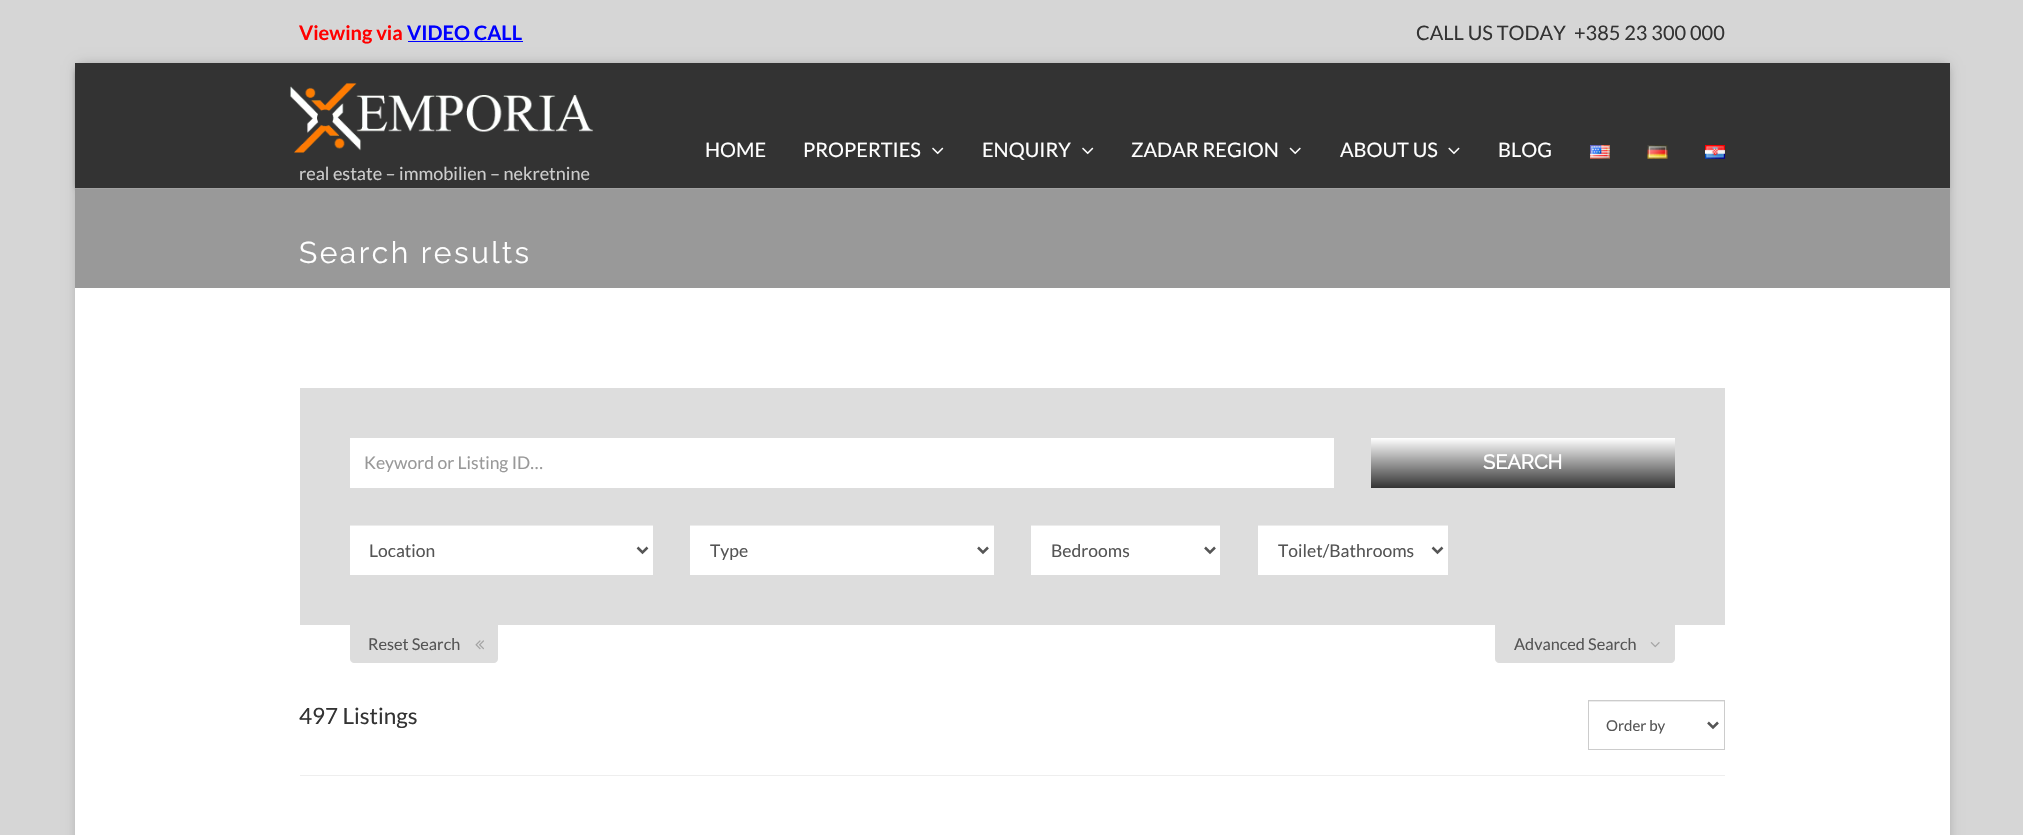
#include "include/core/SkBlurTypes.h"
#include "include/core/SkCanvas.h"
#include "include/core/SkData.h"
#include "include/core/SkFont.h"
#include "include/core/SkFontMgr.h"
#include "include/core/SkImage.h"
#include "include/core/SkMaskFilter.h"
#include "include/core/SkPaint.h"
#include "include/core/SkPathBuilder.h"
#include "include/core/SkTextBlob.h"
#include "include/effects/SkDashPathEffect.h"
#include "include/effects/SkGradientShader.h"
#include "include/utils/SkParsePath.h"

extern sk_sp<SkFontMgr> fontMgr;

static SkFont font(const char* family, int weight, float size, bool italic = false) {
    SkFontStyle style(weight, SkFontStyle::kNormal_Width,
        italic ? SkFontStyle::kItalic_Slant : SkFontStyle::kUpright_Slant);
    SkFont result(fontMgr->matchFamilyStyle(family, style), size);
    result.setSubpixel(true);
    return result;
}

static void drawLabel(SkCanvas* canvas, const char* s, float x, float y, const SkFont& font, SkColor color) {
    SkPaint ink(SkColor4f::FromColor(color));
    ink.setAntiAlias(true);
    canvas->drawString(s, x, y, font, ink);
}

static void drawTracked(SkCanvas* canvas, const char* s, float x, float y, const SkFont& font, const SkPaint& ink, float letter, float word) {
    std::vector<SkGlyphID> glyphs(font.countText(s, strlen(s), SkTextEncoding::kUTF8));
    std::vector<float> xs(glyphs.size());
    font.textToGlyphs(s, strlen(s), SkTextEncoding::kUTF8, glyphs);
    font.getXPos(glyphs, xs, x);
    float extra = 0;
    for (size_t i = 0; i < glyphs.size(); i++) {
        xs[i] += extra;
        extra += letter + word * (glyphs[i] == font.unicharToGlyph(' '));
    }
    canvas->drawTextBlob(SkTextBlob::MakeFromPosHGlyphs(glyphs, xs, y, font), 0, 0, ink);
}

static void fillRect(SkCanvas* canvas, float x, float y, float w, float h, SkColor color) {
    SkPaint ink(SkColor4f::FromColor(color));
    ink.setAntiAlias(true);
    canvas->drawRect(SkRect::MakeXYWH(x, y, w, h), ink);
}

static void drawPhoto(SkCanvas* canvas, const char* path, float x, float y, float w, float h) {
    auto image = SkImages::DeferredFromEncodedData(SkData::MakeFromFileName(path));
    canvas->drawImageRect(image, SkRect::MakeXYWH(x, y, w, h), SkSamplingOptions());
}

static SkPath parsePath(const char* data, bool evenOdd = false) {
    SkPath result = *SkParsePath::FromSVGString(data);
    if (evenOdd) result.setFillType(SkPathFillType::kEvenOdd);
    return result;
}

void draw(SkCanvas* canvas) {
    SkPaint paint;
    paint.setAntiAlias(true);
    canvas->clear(0xFFD6D6D6);
    SkFont font1 = font("Lato", 700, 20);
    drawLabel(canvas, "Viewing via", 299, 40, font1, 0xFFFF0000);
    drawLabel(canvas, "VIDEO CALL", 407, 40, font1, 0xFF0000FF);
    fillRect(canvas, 408, 41, 115, 1, 0xFF0000FF);
    SkFont font2 = font("Lato", 400, 20);
    drawLabel(canvas, "CALL US TODAY", 1416, 40, font2, 0xFF333333);
    drawLabel(canvas, "+385 23 300 000", 1574, 40, font2, 0xFF333333);
    paint.setColor(0x40000000);
    paint.setMaskFilter(SkMaskFilter::MakeBlur(kNormal_SkBlurStyle, 6));
    canvas->drawRect(SkRect::MakeXYWH(78, 65, 1870, 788), paint);
    paint.setMaskFilter(nullptr);
    fillRect(canvas, 75, 288, 1875, 547, 0xFFFFFFFF);
    paint.setColor(0xBF000000);
    paint.setMaskFilter(SkMaskFilter::MakeBlur(kNormal_SkBlurStyle, 3));
    canvas->drawRect(SkRect::MakeXYWH(78, 70, 1867, 118), paint);
    paint.setMaskFilter(nullptr);
    fillRect(canvas, 75, 63, 1875, 125, 0xFF333333);
    drawLabel(canvas, "HOME", 705, 157, font2, 0xFFFFFFFF);
    drawLabel(canvas, "PROPERTIES", 803, 157, font2, 0xFFFFFFFF);
    drawPhoto(canvas, "assets/img1.png", 932, 147, 12, 8);
    drawLabel(canvas, "ENQUIRY", 982, 157, font2, 0xFFFFFFFF);
    drawPhoto(canvas, "assets/img1.png", 1082, 147, 12, 8);
    drawLabel(canvas, "ZADAR REGION", 1131, 157, font2, 0xFFFFFFFF);
    drawPhoto(canvas, "assets/img2.png", 1289, 147, 12, 8);
    drawLabel(canvas, "ABOUT US", 1340, 157, font2, 0xFFFFFFFF);
    drawPhoto(canvas, "assets/img3.png", 1448, 147, 12, 8);
    drawLabel(canvas, "BLOG", 1498, 157, font2, 0xFFFFFFFF);
    drawPhoto(canvas, "assets/img4.png", 1590, 145, 20, 14);
    drawPhoto(canvas, "assets/img5.png", 1647, 145, 21, 14);
    drawPhoto(canvas, "assets/img6.png", 1705, 145, 20, 14);
    drawPhoto(canvas, "assets/img7.png", 290, 83, 304, 70);
    SkFont font3 = font("Lato", 400, 18);
    drawLabel(canvas, "real estate – immobilien – nekretnine", 299, 180, font3, 0xFFCCCCCC);
    fillRect(canvas, 75, 189, 1875, 99, 0xFF999999);
    fillRect(canvas, 75, 188, 1875, 1, 0xFFA3A3A3);
    SkFont font4 = font("Raleway", 400, 30);
    paint.setColor(0xFFFFFFFF);
    drawTracked(canvas, "Search results", 299, 263, font4, paint, 2.5f, 0);
    fillRect(canvas, 300, 388, 1425, 237, 0xFFDDDDDD);
    fillRect(canvas, 350, 438, 984, 50, 0xFFFFFFFF);
    SkFont font5 = font("Lato", 400, 17.5f);
    drawLabel(canvas, "Keyword or Listing ID…", 364, 469, font5, 0xFF999999);
    {
        const SkColor colors[] = {0xFFFFFFFF, 0xFF333333};
        const float stops[] = {0, 1};
        const SkPoint ends[] = {{1523, 438}, {1523, 488}};
        paint.setShader(SkGradientShader::MakeLinear(ends, colors, stops, 2, SkTileMode::kClamp));
        paint.setAlpha(255);
    }
    canvas->drawRect(SkRect::MakeXYWH(1371, 438, 304, 50), paint);
    SkFont font6 = font("Raleway", 700, 20);
    drawLabel(canvas, "SEARCH", 1483, 469, font6, 0xFFFFFFFF);
    fillRect(canvas, 350, 526, 303, 49, 0xFFFFFFFF);
    fillRect(canvas, 350, 525, 303, 1, 0xFFECECEC);
    paint.setStroke(true);
    paint.setStrokeWidth(2.5f);
    paint.setShader(nullptr);
    paint.setColor(0xFF555555);
    canvas->drawPath(parsePath("M637.5 547.5L642.5 552.5L647.5 547.5"), paint);
    drawLabel(canvas, "Location", 369, 557, font5, 0xFF555555);
    fillRect(canvas, 690, 526, 304, 49, 0xFFFFFFFF);
    fillRect(canvas, 690, 525, 304, 1, 0xFFECECEC);
    canvas->drawPath(parsePath("M978 547.5L983 552.5L988 547.5"), paint);
    drawLabel(canvas, "Type", 710, 557, font5, 0xFF555555);
    fillRect(canvas, 1031, 526, 189, 49, 0xFFFFFFFF);
    fillRect(canvas, 1031, 525, 189, 1, 0xFFECECEC);
    canvas->drawPath(parsePath("M1205 547.5L1210 552.5L1215 547.5"), paint);
    drawLabel(canvas, "Bedrooms", 1051, 557, font5, 0xFF555555);
    fillRect(canvas, 1258, 526, 190, 49, 0xFFFFFFFF);
    fillRect(canvas, 1258, 525, 190, 1, 0xFFECECEC);
    canvas->drawPath(parsePath("M1432.5 547.5L1437.5 552.5L1442.5 547.5"), paint);
    drawLabel(canvas, "Toilet/Bathrooms", 1278, 557, font5, 0xFF555555);
    paint.setStroke(false);
    paint.setColor(0xFFDDDDDD);
    canvas->drawPath(parsePath("M350 625H498V659C498 661 496 663 494 663H354C352 663 350 661 350 659Z"), paint);
    SkFont font7 = font("Lato", 400, 16.25f);
    drawLabel(canvas, "Reset Search", 368, 650, font7, 0xFF555555);
    drawPhoto(canvas, "assets/img8.png", 475, 640, 9, 10);
    canvas->drawPath(parsePath("M1495 625H1675V659C1675 661 1673 663 1671 663H1499C1497 663 1495 661 1495 659Z"), paint);
    drawLabel(canvas, "Advanced Search", 1514, 650, font7, 0xFF555555);
    drawPhoto(canvas, "assets/img9.png", 1650, 642, 10, 6);
    fillRect(canvas, 300, 775, 1425, 1, 0xFFEEEEEE);
    SkFont font8 = font("Lato", 400, 22.5f);
    drawLabel(canvas, "497 Listings", 299, 724, font8, 0xFF333333);
    fillRect(canvas, 1589, 701, 135, 1, 0xFFECECEC);
    paint.setStroke(true);
    paint.setStrokeWidth(1);
    paint.setColor(0xFFCCCCCC);
    canvas->drawRect(SkRect::MakeXYWH(1588.5f, 700.5f, 136, 49), paint);
    paint.setStrokeWidth(2.5f);
    paint.setColor(0xFF555555);
    canvas->drawPath(parsePath("M1708 722.5L1713 727.5L1718 722.5"), paint);
    SkFont font9 = font("Lato", 400, 15);
    drawLabel(canvas, "Order by", 1606, 731, font9, 0xFF555555);
}
